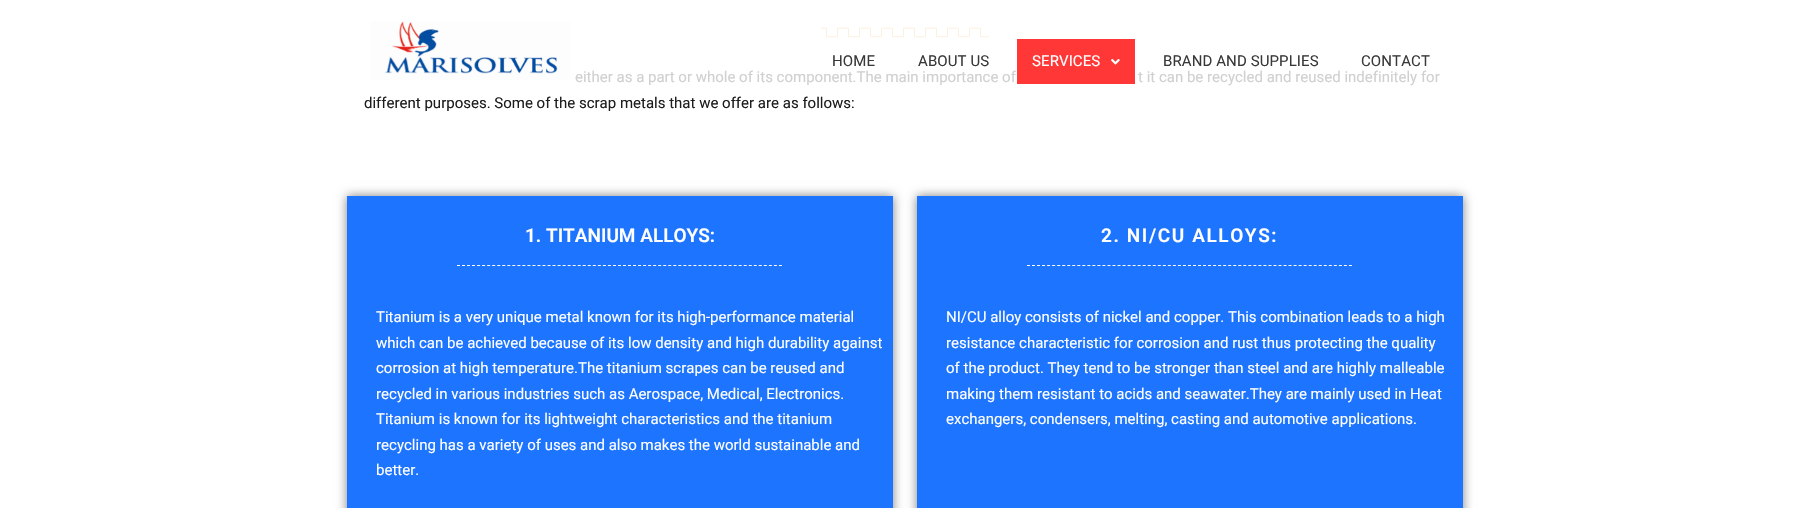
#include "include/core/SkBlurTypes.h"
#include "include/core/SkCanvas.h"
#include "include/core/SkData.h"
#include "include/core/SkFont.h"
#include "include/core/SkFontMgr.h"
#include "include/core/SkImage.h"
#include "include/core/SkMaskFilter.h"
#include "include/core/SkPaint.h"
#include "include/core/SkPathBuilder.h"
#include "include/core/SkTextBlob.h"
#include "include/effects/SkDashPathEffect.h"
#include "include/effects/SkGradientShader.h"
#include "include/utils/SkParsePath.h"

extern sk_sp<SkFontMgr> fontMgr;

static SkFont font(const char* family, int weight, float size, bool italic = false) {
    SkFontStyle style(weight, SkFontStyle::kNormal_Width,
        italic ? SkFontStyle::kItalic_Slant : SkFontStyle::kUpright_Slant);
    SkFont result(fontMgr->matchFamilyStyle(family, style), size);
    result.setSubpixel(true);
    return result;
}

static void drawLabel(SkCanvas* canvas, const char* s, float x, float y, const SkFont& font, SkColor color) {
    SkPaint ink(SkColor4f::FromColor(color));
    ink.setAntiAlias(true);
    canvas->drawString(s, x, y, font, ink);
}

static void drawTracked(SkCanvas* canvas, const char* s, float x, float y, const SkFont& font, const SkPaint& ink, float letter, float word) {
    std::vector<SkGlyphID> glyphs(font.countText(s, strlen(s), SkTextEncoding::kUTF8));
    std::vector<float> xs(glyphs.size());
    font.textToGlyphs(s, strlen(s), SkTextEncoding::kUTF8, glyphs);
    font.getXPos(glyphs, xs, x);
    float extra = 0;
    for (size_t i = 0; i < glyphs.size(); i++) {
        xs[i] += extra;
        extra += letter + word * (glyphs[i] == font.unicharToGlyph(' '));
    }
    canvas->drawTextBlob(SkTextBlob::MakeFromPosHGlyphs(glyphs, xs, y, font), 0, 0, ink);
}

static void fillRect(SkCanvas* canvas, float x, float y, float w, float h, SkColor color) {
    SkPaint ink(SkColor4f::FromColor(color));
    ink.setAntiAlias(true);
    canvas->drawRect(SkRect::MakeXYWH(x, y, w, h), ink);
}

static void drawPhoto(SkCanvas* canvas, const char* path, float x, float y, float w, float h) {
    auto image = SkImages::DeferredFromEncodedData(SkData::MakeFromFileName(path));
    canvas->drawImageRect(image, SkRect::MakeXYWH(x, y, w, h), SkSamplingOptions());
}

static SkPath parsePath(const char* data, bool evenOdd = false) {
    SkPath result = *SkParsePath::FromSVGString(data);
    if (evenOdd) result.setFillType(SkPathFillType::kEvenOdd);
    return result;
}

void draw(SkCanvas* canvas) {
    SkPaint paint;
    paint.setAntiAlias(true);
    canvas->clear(0xFFFFFFFF);
    drawPhoto(canvas, "assets/img1.png", 369, 21, 201, 60);
    SkFont font1 = font("Roboto", 400, 15);
    paint.setColor(0xFF393939);
    drawTracked(canvas, "HOME", 832, 66, font1, paint, 0.1f, 0);
    drawTracked(canvas, "ABOUT US", 918, 66, font1, paint, 0.1f, 0);
    fillRect(canvas, 1017, 39, 118, 45, 0xFFFF3737);
    paint.setColor(0xFFFFFFFF);
    drawTracked(canvas, "SERVICES", 1032, 66, font1, paint, 0.1f, 0);
    drawPhoto(canvas, "assets/img2.png", 1111, 59, 9, 6);
    paint.setColor(0xFF393939);
    drawTracked(canvas, "BRAND AND SUPPLIES", 1163, 66, font1, paint, 0.1f, 0);
    drawTracked(canvas, "CONTACT", 1361, 66, font1, paint, 0.1f, 0);
    drawPhoto(canvas, "assets/img3.png", 821, 27, 168, 11);
    drawLabel(canvas, "either as a part or whole of its component.The main importance of", 575, 82, font1, 0xFFD0D0D0);
    drawLabel(canvas, "t it can be recycled and reused indefinitely for", 1138, 82, font1, 0xFFD0D0D0);
    drawLabel(canvas, "different purposes. Some of the scrap metals that we offer are as follows:", 364, 108, font1, 0xFF1E1D1D);
    paint.setColor(0x80000000);
    paint.setMaskFilter(SkMaskFilter::MakeBlur(kNormal_SkBlurStyle, 5));
    canvas->drawRect(SkRect::MakeXYWH(347, 196, 546, 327), paint);
    paint.setMaskFilter(nullptr);
    fillRect(canvas, 347, 196, 546, 312, 0xFF1C74FF);
    SkFont font2 = font("Roboto", 600, 19);
    drawLabel(canvas, "1. TITANIUM ALLOYS:", 525, 242, font2, 0xFFFFFFFF);
    paint.setStroke(true);
    paint.setStrokeWidth(1);
    paint.setColor(0xFFFFFFFF);
    paint.setPathEffect(SkDashPathEffect::Make({{3, 2.03f}}, 0));
    canvas->drawPath(parsePath("M457 265.5H782"), paint);
    paint.setPathEffect(nullptr);
    drawLabel(canvas, "Titanium is a very unique metal known for its high-performance material", 376, 322, font1, 0xFFFFFFFF);
    drawLabel(canvas, "which can be achieved because of its low density and high durability against", 376, 348, font1, 0xFFFFFFFF);
    drawLabel(canvas, "corrosion at high temperature.The titanium scrapes can be reused and", 376, 373, font1, 0xFFFFFFFF);
    drawLabel(canvas, "recycled in various industries such as Aerospace, Medical, Electronics.", 376, 399, font1, 0xFFFFFFFF);
    drawLabel(canvas, "Titanium is known for its lightweight characteristics and the titanium", 376, 424, font1, 0xFFFFFFFF);
    drawLabel(canvas, "recycling has a variety of uses and also makes the world sustainable and", 376, 450, font1, 0xFFFFFFFF);
    drawLabel(canvas, "better.", 376, 475, font1, 0xFFFFFFFF);
    paint.setStroke(false);
    paint.setColor(0x80000000);
    paint.setMaskFilter(SkMaskFilter::MakeBlur(kNormal_SkBlurStyle, 5));
    canvas->drawRect(SkRect::MakeXYWH(917, 196, 546, 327), paint);
    paint.setMaskFilter(nullptr);
    fillRect(canvas, 917, 196, 546, 312, 0xFF1C74FF);
    paint.setColor(0xFFFFFFFF);
    drawTracked(canvas, "2. NI/CU ALLOYS:", 1101, 242, font2, paint, 1.6f, 0);
    paint.setStroke(true);
    paint.setPathEffect(SkDashPathEffect::Make({{3, 2.03f}}, 0));
    canvas->drawPath(parsePath("M1027 265.5H1352"), paint);
    paint.setPathEffect(nullptr);
    drawLabel(canvas, "NI/CU alloy consists of nickel and copper. This combination leads to a high", 946, 322, font1, 0xFFFFFFFF);
    drawLabel(canvas, "resistance characteristic for corrosion and rust thus protecting the quality", 946, 348, font1, 0xFFFFFFFF);
    drawLabel(canvas, "of the product. They tend to be stronger than steel and are highly malleable", 946, 373, font1, 0xFFFFFFFF);
    drawLabel(canvas, "making them resistant to acids and seawater.They are mainly used in Heat", 946, 399, font1, 0xFFFFFFFF);
    drawLabel(canvas, "exchangers, condensers, melting, casting and automotive applications.", 946, 424, font1, 0xFFFFFFFF);
}
